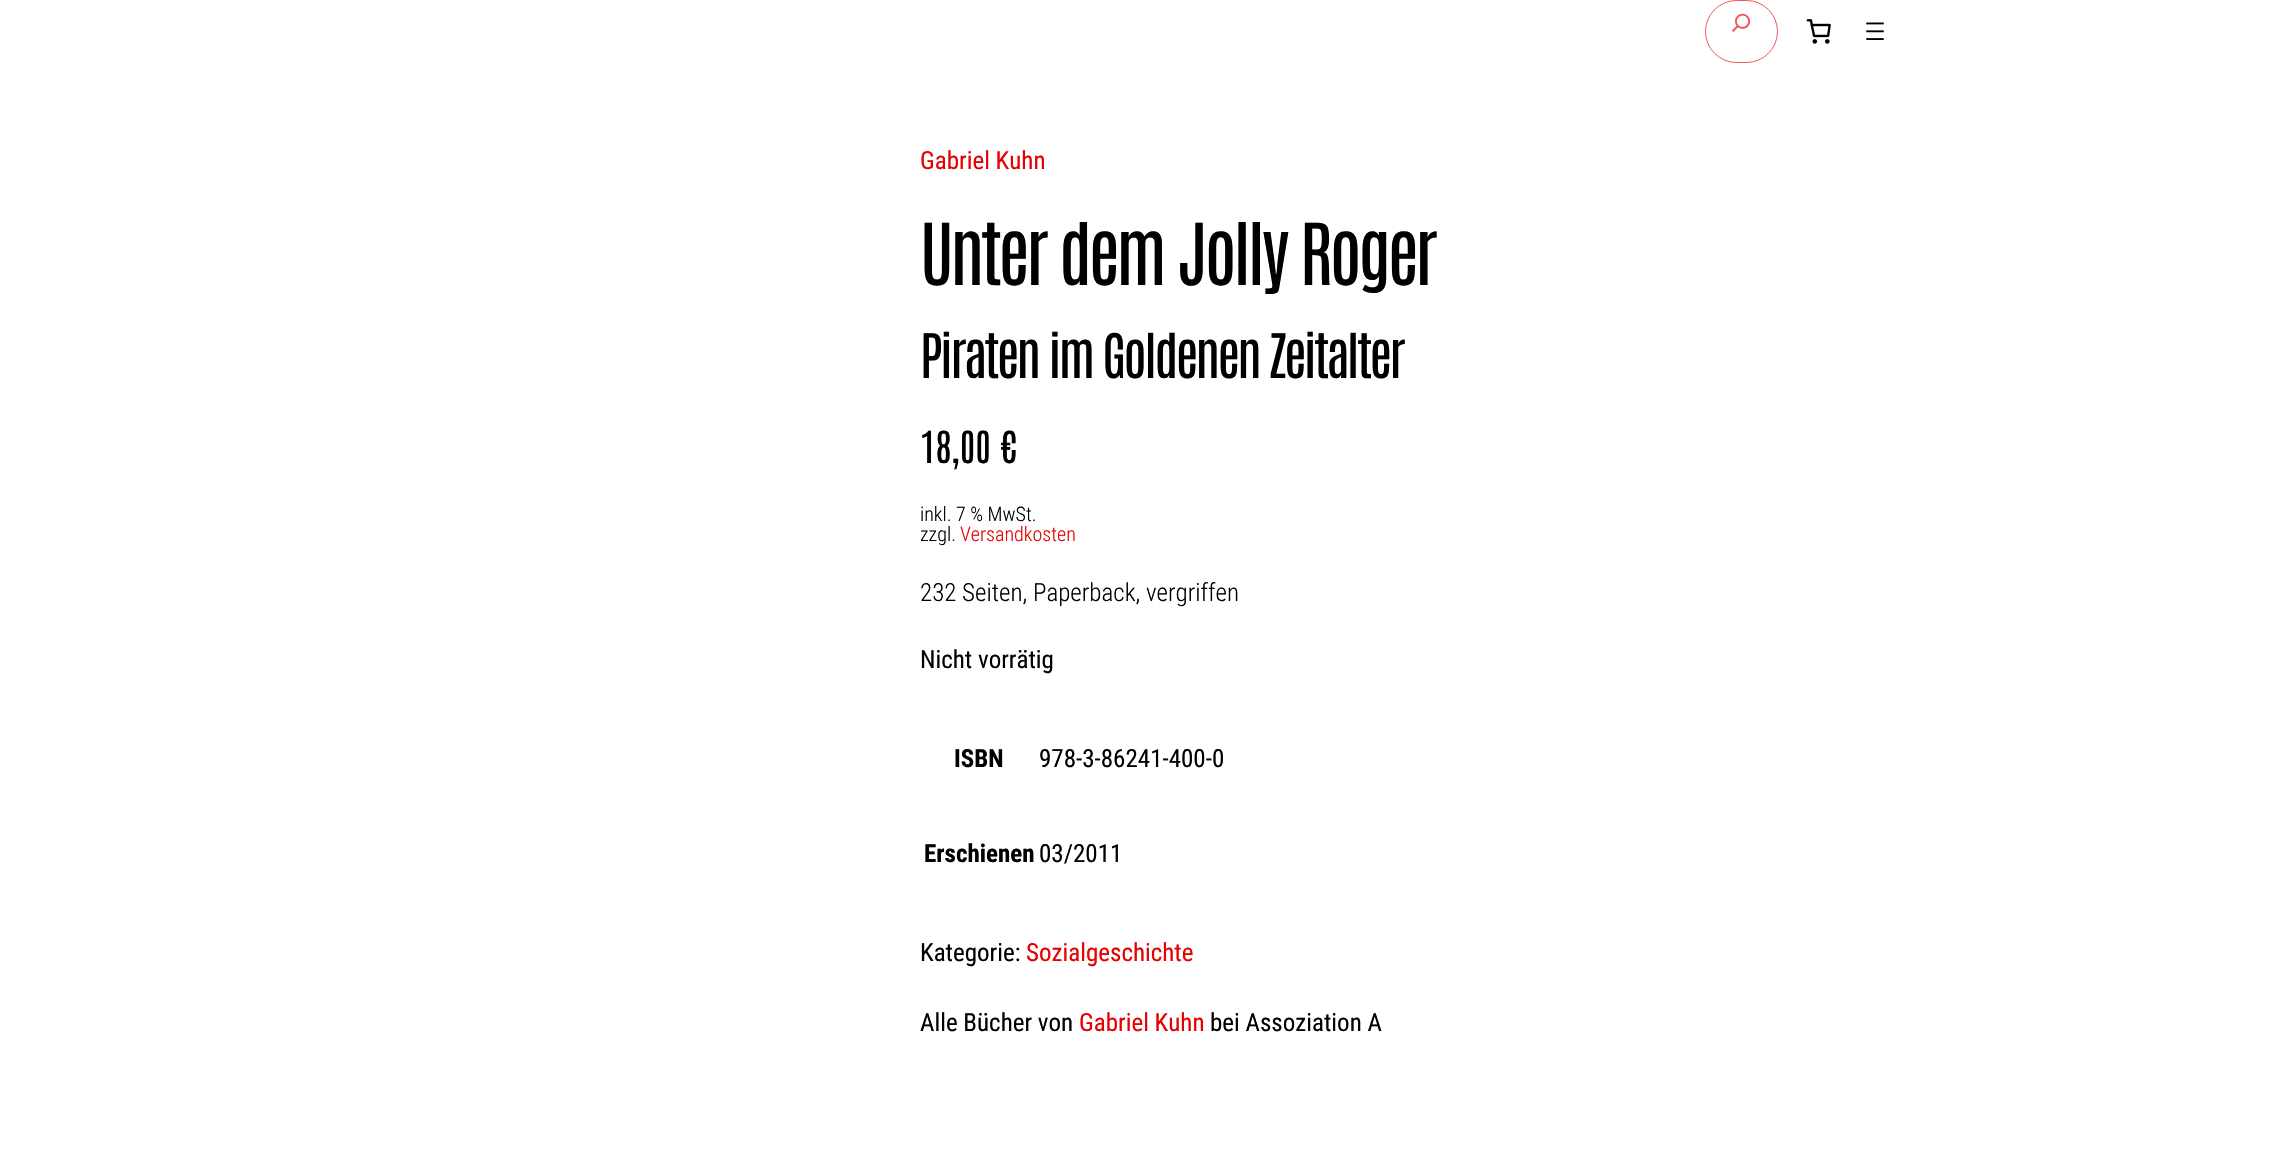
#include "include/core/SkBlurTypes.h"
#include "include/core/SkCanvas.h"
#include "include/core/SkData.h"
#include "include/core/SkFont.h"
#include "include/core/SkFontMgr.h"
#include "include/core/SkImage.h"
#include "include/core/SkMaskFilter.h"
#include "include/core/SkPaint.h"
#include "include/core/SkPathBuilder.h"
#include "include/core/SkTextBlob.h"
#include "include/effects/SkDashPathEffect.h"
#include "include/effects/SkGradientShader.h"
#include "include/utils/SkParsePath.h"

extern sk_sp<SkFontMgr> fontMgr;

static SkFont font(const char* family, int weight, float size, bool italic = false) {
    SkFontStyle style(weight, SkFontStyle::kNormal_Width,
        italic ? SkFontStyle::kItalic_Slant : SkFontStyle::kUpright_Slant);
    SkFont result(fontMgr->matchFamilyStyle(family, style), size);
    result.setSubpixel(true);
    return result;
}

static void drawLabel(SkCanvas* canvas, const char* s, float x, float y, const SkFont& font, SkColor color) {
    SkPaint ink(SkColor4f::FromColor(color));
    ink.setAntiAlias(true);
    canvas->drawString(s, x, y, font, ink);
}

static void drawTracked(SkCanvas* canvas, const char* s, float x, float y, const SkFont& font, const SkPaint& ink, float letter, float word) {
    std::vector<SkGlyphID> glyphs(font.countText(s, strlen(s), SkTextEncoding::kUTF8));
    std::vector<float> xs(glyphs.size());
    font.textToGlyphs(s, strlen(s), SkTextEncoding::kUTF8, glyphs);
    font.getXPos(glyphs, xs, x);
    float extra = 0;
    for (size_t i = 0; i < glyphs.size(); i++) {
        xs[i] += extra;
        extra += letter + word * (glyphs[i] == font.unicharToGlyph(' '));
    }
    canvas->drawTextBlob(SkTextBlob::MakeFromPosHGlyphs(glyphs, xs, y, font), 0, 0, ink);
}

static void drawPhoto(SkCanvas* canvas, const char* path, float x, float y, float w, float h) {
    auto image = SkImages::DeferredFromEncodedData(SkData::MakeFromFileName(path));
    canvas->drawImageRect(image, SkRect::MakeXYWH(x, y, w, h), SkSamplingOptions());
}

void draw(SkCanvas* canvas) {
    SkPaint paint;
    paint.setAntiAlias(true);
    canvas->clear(0xFFFFFFFF);
    paint.setStroke(true);
    paint.setStrokeWidth(1);
    paint.setColor(0xFFEF5757);
    canvas->drawRoundRect(SkRect::MakeXYWH(1705.5f, 0.5f, 72, 62), 31, 31, paint);
    drawPhoto(canvas, "assets/img1.png", 1732, 13, 19, 19);
    drawPhoto(canvas, "assets/img2.png", 1806, 19, 25, 25);
    drawPhoto(canvas, "assets/img3.png", 1866, 22, 18, 18);
    SkFont font1 = font("Roboto Condensed", 400, 25);
    drawLabel(canvas, "Gabriel Kuhn", 920, 169, font1, 0xFFE60000);
    SkFont font2 = font("Antonio", 400, 72.5f);
    paint.setStroke(false);
    paint.setColor(0xFF000000);
    drawTracked(canvas, "Unter dem Jolly Roger", 920, 285, font2, paint, -3.6f, 0);
    SkFont font3 = font("Antonio", 400, 52);
    drawTracked(canvas, "Piraten im Goldenen Zeitalter", 920, 378, font3, paint, -2.6f, 0);
    SkFont font4 = font("Antonio", 400, 37.5f);
    drawLabel(canvas, "18,00 €", 920, 463, font4, 0xFF000000);
    SkFont font5 = font("Roboto Condensed", 300, 20);
    drawLabel(canvas, "inkl. 7 % MwSt.", 920, 521, font5, 0xFF000000);
    drawLabel(canvas, "zzgl.", 920, 541, font5, 0xFF000000);
    drawLabel(canvas, "Versandkosten", 960, 541, font5, 0xFFE60000);
    SkFont font6 = font("Roboto Condensed", 300, 25);
    drawLabel(canvas, "232 Seiten, Paperback, vergriffen", 920, 601, font6, 0xFF000000);
    drawLabel(canvas, "Nicht vorrätig", 920, 668, font1, 0xFF000000);
    SkFont font7 = font("Roboto Condensed", 700, 25);
    drawLabel(canvas, "ISBN", 954, 767, font7, 0xFF000000);
    drawLabel(canvas, "978-3-86241-400-0", 1039, 767, font1, 0xFF000000);
    drawLabel(canvas, "Erschienen", 924, 862, font7, 0xFF000000);
    drawLabel(canvas, "03/2011", 1039, 862, font1, 0xFF000000);
    drawLabel(canvas, "Kategorie:", 920, 961, font1, 0xFF000000);
    drawLabel(canvas, "Sozialgeschichte", 1026, 961, font1, 0xFFE60000);
    drawLabel(canvas, "Alle Bücher von", 920, 1031, font1, 0xFF000000);
    drawLabel(canvas, "Gabriel Kuhn", 1079, 1031, font1, 0xFFE60000);
    drawLabel(canvas, "bei Assoziation A", 1210, 1031, font1, 0xFF000000);
}
